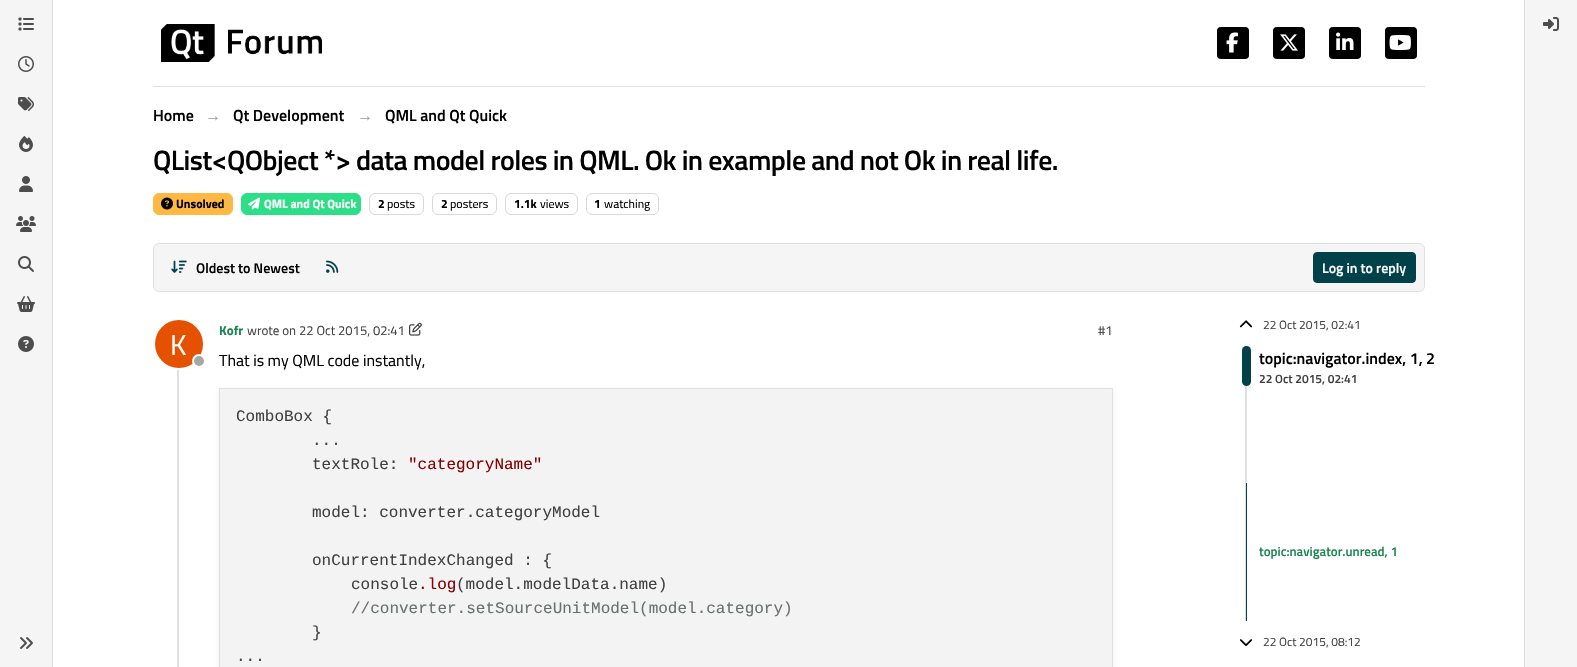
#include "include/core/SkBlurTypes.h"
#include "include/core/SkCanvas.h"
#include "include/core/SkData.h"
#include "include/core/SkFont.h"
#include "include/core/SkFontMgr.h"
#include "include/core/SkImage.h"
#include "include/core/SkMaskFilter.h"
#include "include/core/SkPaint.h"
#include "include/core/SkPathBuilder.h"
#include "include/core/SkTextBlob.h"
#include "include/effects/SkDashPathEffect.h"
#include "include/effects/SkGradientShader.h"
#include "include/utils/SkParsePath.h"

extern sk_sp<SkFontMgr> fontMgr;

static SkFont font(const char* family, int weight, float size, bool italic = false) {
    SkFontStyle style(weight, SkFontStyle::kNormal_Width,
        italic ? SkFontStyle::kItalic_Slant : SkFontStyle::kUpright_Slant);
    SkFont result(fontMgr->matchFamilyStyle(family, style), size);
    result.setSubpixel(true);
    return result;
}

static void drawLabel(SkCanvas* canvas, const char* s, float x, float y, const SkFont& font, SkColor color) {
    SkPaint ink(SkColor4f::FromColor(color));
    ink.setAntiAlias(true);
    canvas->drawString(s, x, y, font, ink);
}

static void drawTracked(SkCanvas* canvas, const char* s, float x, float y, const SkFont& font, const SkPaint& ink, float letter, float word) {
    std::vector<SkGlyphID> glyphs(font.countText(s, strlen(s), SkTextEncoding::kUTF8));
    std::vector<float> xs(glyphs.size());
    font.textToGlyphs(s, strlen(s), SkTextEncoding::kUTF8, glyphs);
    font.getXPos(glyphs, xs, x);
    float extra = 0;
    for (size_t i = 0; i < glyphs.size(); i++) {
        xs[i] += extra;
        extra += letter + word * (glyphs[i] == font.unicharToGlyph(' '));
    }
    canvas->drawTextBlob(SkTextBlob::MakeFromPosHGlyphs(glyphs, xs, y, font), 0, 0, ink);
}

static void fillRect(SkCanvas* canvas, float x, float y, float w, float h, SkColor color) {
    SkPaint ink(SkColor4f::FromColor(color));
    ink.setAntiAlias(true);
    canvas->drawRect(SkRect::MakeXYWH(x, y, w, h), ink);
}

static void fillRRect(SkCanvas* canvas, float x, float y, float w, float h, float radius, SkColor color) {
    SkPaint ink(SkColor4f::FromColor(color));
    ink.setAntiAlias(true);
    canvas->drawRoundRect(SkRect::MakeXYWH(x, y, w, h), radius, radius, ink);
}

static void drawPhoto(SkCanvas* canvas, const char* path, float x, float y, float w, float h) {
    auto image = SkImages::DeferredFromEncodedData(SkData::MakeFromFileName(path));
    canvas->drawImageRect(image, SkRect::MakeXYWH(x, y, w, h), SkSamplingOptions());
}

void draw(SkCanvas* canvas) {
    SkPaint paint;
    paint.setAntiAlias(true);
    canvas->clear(0xFFFFFFFF);
    fillRect(canvas, 0, 0, 52, 667, 0xFFF5F5F5);
    fillRect(canvas, 52, 0, 1, 667, 0xFFE0E0E0);
    drawPhoto(canvas, "assets/img1.png", 18, 17, 16, 14);
    drawPhoto(canvas, "assets/img2.png", 18, 56, 16, 16);
    drawPhoto(canvas, "assets/img3.png", 18, 97, 16, 14);
    drawPhoto(canvas, "assets/img4.png", 19, 136, 14, 16);
    drawPhoto(canvas, "assets/img5.png", 19, 176, 14, 16);
    drawPhoto(canvas, "assets/img6.png", 16, 216, 20, 16);
    drawPhoto(canvas, "assets/img7.png", 18, 256, 16, 16);
    drawPhoto(canvas, "assets/img8.png", 17, 296, 18, 16);
    drawPhoto(canvas, "assets/img9.png", 18, 336, 16, 16);
    drawPhoto(canvas, "assets/img10.png", 20, 637, 13, 12);
    fillRect(canvas, 153, 86, 1272, 1, 0xFFE0E0E0);
    drawPhoto(canvas, "assets/img11.png", 161, 24, 161, 38);
    fillRRect(canvas, 1217, 27, 32, 32, 4, 0xFF000000);
    drawPhoto(canvas, "assets/img12.png", 1226, 32, 12, 21);
    fillRRect(canvas, 1273, 27, 32, 32, 4, 0xFF000000);
    drawPhoto(canvas, "assets/img13.png", 1280, 34, 18, 17);
    fillRRect(canvas, 1329, 27, 32, 32, 4, 0xFF000000);
    drawPhoto(canvas, "assets/img14.png", 1336, 32, 18, 18);
    fillRRect(canvas, 1385, 27, 32, 32, 4, 0xFF000000);
    drawPhoto(canvas, "assets/img15.png", 1389, 35, 22, 15);
    SkFont font1 = font("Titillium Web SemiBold", 600, 16);
    drawLabel(canvas, "Home", 153, 121, font1, 0xFF000000);
    SkFont font2 = font("Liberation Sans", 700, 16);
    drawLabel(canvas, "→", 205, 121, font2, 0xFF9E9E9E);
    drawLabel(canvas, "Qt Development", 233, 121, font1, 0xFF000000);
    drawLabel(canvas, "→", 357, 121, font2, 0xFF9E9E9E);
    drawLabel(canvas, "QML and Qt Quick", 385, 121, font1, 0xFF000000);
    SkFont font3 = font("Titillium Web SemiBold", 600, 28);
    paint.setColor(0xFF000000);
    drawTracked(canvas, "QList<QObject *> data model roles in QML. Ok in example and not Ok in real life.", 153, 170, font3, paint, -0.55f, 0);
    paint.setColor(0xFFFFB844);
    canvas->drawRoundRect(SkRect::MakeXYWH(153.5f, 193.5f, 79, 21), 5.5f, 5.5f, paint);
    paint.setStroke(true);
    paint.setStrokeWidth(1);
    canvas->drawRoundRect(SkRect::MakeXYWH(153.5f, 193.5f, 79, 21), 5.5f, 5.5f, paint);
    drawPhoto(canvas, "assets/img16.png", 161, 197, 12, 13);
    SkFont font4 = font("Titillium Web", 700, 12);
    drawLabel(canvas, "Unsolved", 176, 208, font4, 0xFF000000);
    paint.setStroke(false);
    paint.setColor(0xFF2CDE85);
    canvas->drawRoundRect(SkRect::MakeXYWH(241.5f, 193.5f, 119, 21), 5.5f, 5.5f, paint);
    paint.setStroke(true);
    canvas->drawRoundRect(SkRect::MakeXYWH(241.5f, 193.5f, 119, 21), 5.5f, 5.5f, paint);
    drawPhoto(canvas, "assets/img17.png", 248, 197, 12, 13);
    drawLabel(canvas, "QML and Qt Quick", 264, 208, font4, 0xFFFFFFFF);
    paint.setColor(0xFFD9D9D9);
    canvas->drawRoundRect(SkRect::MakeXYWH(369.5f, 193.5f, 54, 21), 5.5f, 5.5f, paint);
    drawLabel(canvas, "2", 378, 208, font4, 0xFF000000);
    SkFont font5 = font("Titillium Web", 400, 12);
    drawLabel(canvas, "posts", 387, 208, font5, 0xFF000000);
    canvas->drawRoundRect(SkRect::MakeXYWH(432.5f, 193.5f, 64, 21), 5.5f, 5.5f, paint);
    drawLabel(canvas, "2", 441, 208, font4, 0xFF000000);
    drawLabel(canvas, "posters", 450, 208, font5, 0xFF000000);
    canvas->drawRoundRect(SkRect::MakeXYWH(505.5f, 193.5f, 72, 21), 5.5f, 5.5f, paint);
    drawLabel(canvas, "1.1k", 514, 208, font4, 0xFF000000);
    drawLabel(canvas, "views", 540, 208, font5, 0xFF000000);
    canvas->drawRoundRect(SkRect::MakeXYWH(586.5f, 193.5f, 72, 21), 5.5f, 5.5f, paint);
    drawLabel(canvas, "1", 594, 208, font4, 0xFF000000);
    drawLabel(canvas, "watching", 604, 208, font5, 0xFF000000);
    paint.setStroke(false);
    paint.setColor(0xFFF5F5F5);
    canvas->drawRoundRect(SkRect::MakeXYWH(153.5f, 243.5f, 1271, 48), 5.5f, 5.5f, paint);
    paint.setStroke(true);
    paint.setColor(0xFFE0E0E0);
    canvas->drawRoundRect(SkRect::MakeXYWH(153.5f, 243.5f, 1271, 48), 5.5f, 5.5f, paint);
    drawPhoto(canvas, "assets/img18.png", 171, 260, 16, 13);
    SkFont font6 = font("Titillium Web SemiBold", 600, 14);
    drawLabel(canvas, "Oldest to Newest", 196, 273, font6, 0xFF000000);
    drawPhoto(canvas, "assets/img19.png", 326, 260, 13, 13);
    paint.setStroke(false);
    paint.setColor(0xFF00414A);
    canvas->drawRoundRect(SkRect::MakeXYWH(1313.5f, 252.5f, 102, 30), 3.5f, 3.5f, paint);
    paint.setStroke(true);
    canvas->drawRoundRect(SkRect::MakeXYWH(1313.5f, 252.5f, 102, 30), 3.5f, 3.5f, paint);
    drawLabel(canvas, "Log in to reply", 1322, 273, font6, 0xFFFFFFFF);
    fillRect(canvas, 177, 320, 2, 347, 0xFFE0E0E0);
    paint.setStrokeWidth(2);
    paint.setColor(0xFFFFFFFF);
    canvas->drawCircle(179, 344, 25, paint);
    paint.setStroke(false);
    paint.setColor(0xFFE65100);
    canvas->drawCircle(179, 344, 24, paint);
    SkFont font7 = font("Titillium Web", 400, 29);
    drawLabel(canvas, "K", 170, 355, font7, 0xFFFFFFFF);
    paint.setColor(0xFFA6A6A6);
    canvas->drawCircle(199, 361, 6, paint);
    paint.setStroke(true);
    paint.setColor(0xFFFFFFFF);
    canvas->drawCircle(199, 361, 6, paint);
    SkFont font8 = font("Titillium Web", 700, 13);
    drawLabel(canvas, "Kofr", 219, 335, font8, 0xFF1A8550);
    SkFont font9 = font("Titillium Web", 400, 13);
    drawLabel(canvas, "wrote on 22 Oct 2015, 02:41", 247, 335, font9, 0xFF404040);
    drawPhoto(canvas, "assets/img20.png", 409, 322, 13, 14);
    drawLabel(canvas, "#1", 1098, 335, font9, 0xFF404040);
    SkFont font10 = font("Titillium Web", 400, 16);
    drawLabel(canvas, "That is my QML code instantly,", 219, 366, font10, 0xFF000000);
    paint.setStroke(false);
    paint.setColor(0x12000000);
    paint.setMaskFilter(SkMaskFilter::MakeBlur(kNormal_SkBlurStyle, 2));
    canvas->drawRect(SkRect::MakeXYWH(219, 390, 894, 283), paint);
    paint.setMaskFilter(nullptr);
    paint.setStroke(true);
    paint.setStrokeWidth(1);
    paint.setColor(0xFFE0E0E0);
    canvas->drawRect(SkRect::MakeXYWH(219.5f, 388.5f, 893, 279), paint);
    fillRect(canvas, 220, 389, 892, 278, 0xFFF3F3F3);
    SkFont font11 = font("Liberation Mono", 400, 16);
    drawLabel(canvas, "ComboBox {", 236, 421, font11, 0xFF404040);
    drawLabel(canvas, "...", 312, 445, font11, 0xFF404040);
    drawLabel(canvas, "textRole:", 312, 469, font11, 0xFF404040);
    drawLabel(canvas, "\"categoryName\"", 408, 469, font11, 0xFF880000);
    drawLabel(canvas, "model: converter.categoryModel", 312, 517, font11, 0xFF404040);
    drawLabel(canvas, "onCurrentIndexChanged : {", 312, 565, font11, 0xFF404040);
    drawLabel(canvas, "console", 351, 589, font11, 0xFF404040);
    drawLabel(canvas, ".log", 418, 589, font11, 0xFF880000);
    drawLabel(canvas, "(model.modelData.name)", 456, 589, font11, 0xFF404040);
    drawLabel(canvas, "//converter.setSourceUnitModel(model.category)", 351, 613, font11, 0xFF697070);
    drawLabel(canvas, "}", 312, 637, font11, 0xFF404040);
    drawLabel(canvas, "...", 236, 661, font11, 0xFF404040);
    drawPhoto(canvas, "assets/img21.png", 1239, 320, 14, 8);
    drawLabel(canvas, "22 Oct 2015, 02:41", 1263, 329, font5, 0xFF404040);
    fillRect(canvas, 1245, 346, 2, 275, 0xFFE0E0E0);
    fillRRect(canvas, 1242, 346, 9, 40, 4.5f, 0xFF00414A);
    drawLabel(canvas, "topic:navigator.index, 1, 2", 1259, 364, font1, 0xFF000000);
    SkFont font12 = font("Titillium Web SemiBold", 600, 12);
    drawLabel(canvas, "22 Oct 2015, 02:41", 1259, 383, font12, 0xFF404040);
    fillRect(canvas, 1246, 483, 1, 138, 0xFF00414A);
    SkFont font13 = font("Titillium Web SemiBold", 600, 13);
    drawLabel(canvas, "topic:navigator.unread, 1", 1259, 556, font13, 0xFF1A8550);
    drawPhoto(canvas, "assets/img22.png", 1240, 639, 12, 7);
    drawLabel(canvas, "22 Oct 2015, 08:12", 1263, 646, font5, 0xFF404040);
    fillRect(canvas, 1525, 0, 52, 667, 0xFFF5F5F5);
    fillRect(canvas, 1524, 0, 1, 667, 0xFFE0E0E0);
    drawPhoto(canvas, "assets/img23.png", 1543, 17, 16, 14);
}
